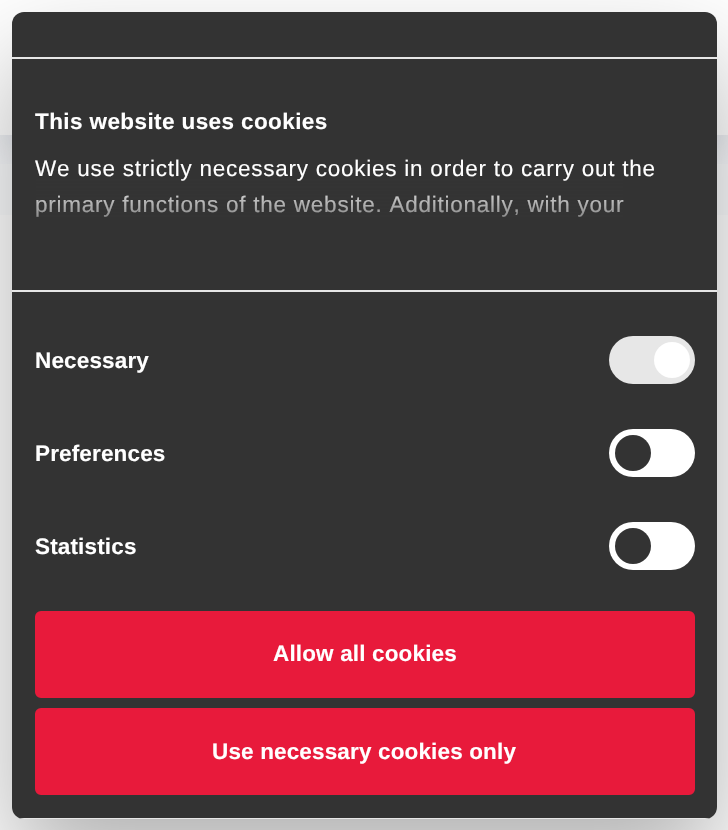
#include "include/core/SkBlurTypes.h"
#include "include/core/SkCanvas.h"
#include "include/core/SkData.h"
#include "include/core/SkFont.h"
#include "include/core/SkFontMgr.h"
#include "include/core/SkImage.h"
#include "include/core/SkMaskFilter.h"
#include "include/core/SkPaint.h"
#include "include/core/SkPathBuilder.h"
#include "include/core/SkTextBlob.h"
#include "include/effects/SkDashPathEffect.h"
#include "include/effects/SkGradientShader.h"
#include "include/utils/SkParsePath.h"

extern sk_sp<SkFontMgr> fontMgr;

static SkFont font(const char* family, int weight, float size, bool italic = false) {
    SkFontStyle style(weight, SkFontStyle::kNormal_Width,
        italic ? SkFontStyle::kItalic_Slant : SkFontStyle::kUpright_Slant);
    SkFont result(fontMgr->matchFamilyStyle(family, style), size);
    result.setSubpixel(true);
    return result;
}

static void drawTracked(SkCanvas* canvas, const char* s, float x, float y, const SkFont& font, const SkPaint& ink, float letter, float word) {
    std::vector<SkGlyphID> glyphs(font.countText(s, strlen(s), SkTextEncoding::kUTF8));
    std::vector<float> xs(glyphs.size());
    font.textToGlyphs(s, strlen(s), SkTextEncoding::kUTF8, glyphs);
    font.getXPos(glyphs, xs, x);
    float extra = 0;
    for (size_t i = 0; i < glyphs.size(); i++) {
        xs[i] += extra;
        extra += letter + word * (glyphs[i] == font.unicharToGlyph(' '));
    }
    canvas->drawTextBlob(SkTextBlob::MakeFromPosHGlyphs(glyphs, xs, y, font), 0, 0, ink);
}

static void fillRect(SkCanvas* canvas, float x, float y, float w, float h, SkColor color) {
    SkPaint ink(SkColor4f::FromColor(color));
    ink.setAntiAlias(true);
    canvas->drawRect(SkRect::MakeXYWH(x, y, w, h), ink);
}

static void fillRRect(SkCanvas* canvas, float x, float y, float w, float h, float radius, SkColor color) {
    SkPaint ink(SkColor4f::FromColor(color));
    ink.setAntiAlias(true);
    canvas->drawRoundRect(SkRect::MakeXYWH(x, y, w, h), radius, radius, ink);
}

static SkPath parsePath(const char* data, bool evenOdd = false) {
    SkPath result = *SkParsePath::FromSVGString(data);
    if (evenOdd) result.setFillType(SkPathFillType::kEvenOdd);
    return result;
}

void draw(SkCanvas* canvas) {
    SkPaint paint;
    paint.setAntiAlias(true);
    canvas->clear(0xFFFFFFFF);
    fillRect(canvas, 0, 135, 728, 80, 0xFFFAFBFD);
    canvas->save();
    canvas->clipRect(SkRect::MakeXYWH(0, 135, 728, 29));
    paint.setColor(0x265B6E7F);
    paint.setMaskFilter(SkMaskFilter::MakeBlur(kNormal_SkBlurStyle, 15));
    canvas->drawRect(SkRect::MakeXYWH(0, 15, 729, 135), paint);
    paint.setMaskFilter(nullptr);
    canvas->restore();
    paint.setColor(0x4D000000);
    paint.setMaskFilter(SkMaskFilter::MakeBlur(kNormal_SkBlurStyle, 51));
    canvas->drawRoundRect(SkRect::MakeXYWH(12, 60, 705, 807), 12, 12, paint);
    paint.setMaskFilter(nullptr);
    fillRRect(canvas, 12, 12, 705, 807, 12, 0xFF333333);
    fillRect(canvas, 12, 57, 705, 2, 0xFFE7E7E7);
    fillRect(canvas, 12, 290, 705, 2, 0xFFE7E7E7);
    SkFont font1 = font("Liberation Sans", 700, 22.5f);
    paint.setColor(0xFFFFFFFF);
    drawTracked(canvas, "This website uses cookies", 35, 129, font1, paint, 0.4f, 0);
    SkFont font2 = font("Liberation Sans", 400, 22.5f);
    drawTracked(canvas, "We use strictly necessary cookies in order to carry out the", 35, 176, font2, paint, 0.75f, 0);
    drawTracked(canvas, "primary functions of the website. Additionally, with your", 35, 212, font2, paint, 0.75f, 0);
    {
        const SkColor colors[] = {0xFF333333, 0xCC333333, 0x00333333};
        const float stops[] = {0, 0.5f, 1};
        const SkPoint ends[] = {{355, 290}, {355, 177}};
        paint.setShader(SkGradientShader::MakeLinear(ends, colors, stops, 3, SkTileMode::kClamp));
        paint.setAlpha(255);
    }
    canvas->drawRect(SkRect::MakeXYWH(36, 179, 587, 38), paint);
    paint.setShader(nullptr);
    paint.setColor(0xFFFFFFFF);
    drawTracked(canvas, "Necessary", 35, 368, font1, paint, 0.15f, 0);
    fillRRect(canvas, 609, 336, 86, 48, 24, 0xFFE7E7E7);
    canvas->drawCircle(672, 360, 18, paint);
    drawTracked(canvas, "Preferences", 35, 461, font1, paint, 0.15f, 0);
    fillRRect(canvas, 609, 429, 86, 48, 24, 0xFFFFFFFF);
    paint.setColor(0xFF333333);
    canvas->drawCircle(633, 453, 18, paint);
    paint.setColor(0xFFFFFFFF);
    drawTracked(canvas, "Statistics", 35, 554, font1, paint, 0.15f, 0);
    fillRRect(canvas, 609, 522, 86, 48, 24, 0xFFFFFFFF);
    paint.setColor(0xFF333333);
    canvas->drawCircle(633, 546, 18, paint);
    canvas->save();
    canvas->clipPath(parsePath("M24 12H705C711.5 12 717 17.5 717 24V807C717 813.5 711.5 819 705 819H24C17.5 819 12 813.5 12 807V24C12 17.5 17.5 12 24 12Z"), true);
    fillRect(canvas, 12, 818, 705, 1, 0xFFE7E7E7);
    canvas->restore();
    paint.setColor(0xFFE81A3B);
    canvas->drawRoundRect(SkRect::MakeXYWH(36.5f, 612.5f, 657, 84), 4.5f, 4.5f, paint);
    paint.setStroke(true);
    paint.setStrokeWidth(3);
    canvas->drawRoundRect(SkRect::MakeXYWH(36.5f, 612.5f, 657, 84), 4.5f, 4.5f, paint);
    paint.setStroke(false);
    paint.setColor(0xFFFFFFFF);
    drawTracked(canvas, "Allow all cookies", 273, 661, font1, paint, 0.15f, 0);
    paint.setColor(0xFFE81A3B);
    canvas->drawRoundRect(SkRect::MakeXYWH(36.5f, 709.5f, 657, 84), 4.5f, 4.5f, paint);
    paint.setStroke(true);
    canvas->drawRoundRect(SkRect::MakeXYWH(36.5f, 709.5f, 657, 84), 4.5f, 4.5f, paint);
    paint.setStroke(false);
    paint.setColor(0xFFFFFFFF);
    drawTracked(canvas, "Use necessary cookies only", 212, 759, font1, paint, 0.15f, 0);
}
